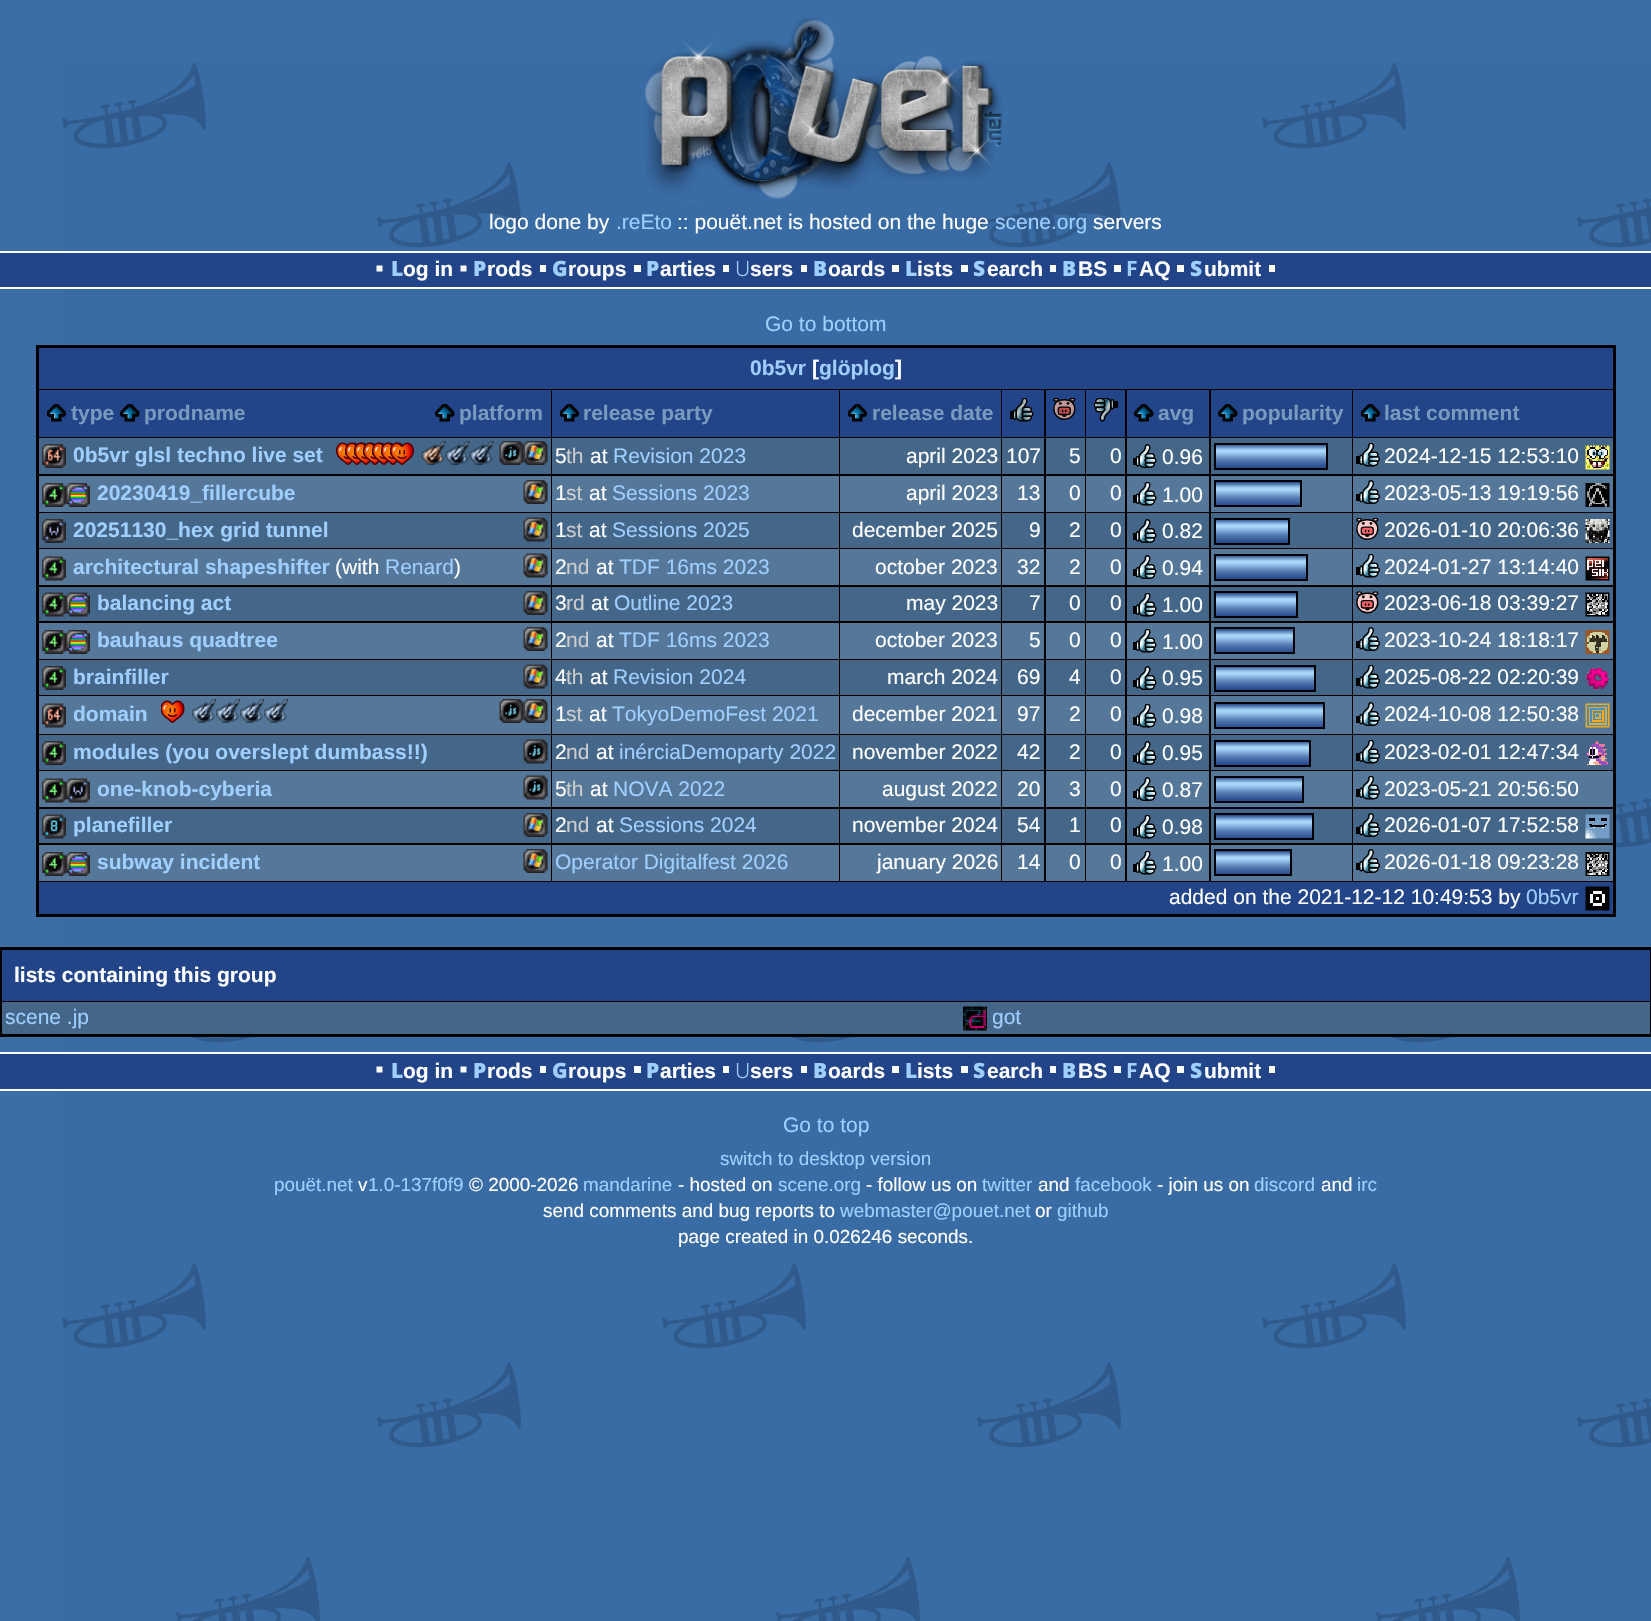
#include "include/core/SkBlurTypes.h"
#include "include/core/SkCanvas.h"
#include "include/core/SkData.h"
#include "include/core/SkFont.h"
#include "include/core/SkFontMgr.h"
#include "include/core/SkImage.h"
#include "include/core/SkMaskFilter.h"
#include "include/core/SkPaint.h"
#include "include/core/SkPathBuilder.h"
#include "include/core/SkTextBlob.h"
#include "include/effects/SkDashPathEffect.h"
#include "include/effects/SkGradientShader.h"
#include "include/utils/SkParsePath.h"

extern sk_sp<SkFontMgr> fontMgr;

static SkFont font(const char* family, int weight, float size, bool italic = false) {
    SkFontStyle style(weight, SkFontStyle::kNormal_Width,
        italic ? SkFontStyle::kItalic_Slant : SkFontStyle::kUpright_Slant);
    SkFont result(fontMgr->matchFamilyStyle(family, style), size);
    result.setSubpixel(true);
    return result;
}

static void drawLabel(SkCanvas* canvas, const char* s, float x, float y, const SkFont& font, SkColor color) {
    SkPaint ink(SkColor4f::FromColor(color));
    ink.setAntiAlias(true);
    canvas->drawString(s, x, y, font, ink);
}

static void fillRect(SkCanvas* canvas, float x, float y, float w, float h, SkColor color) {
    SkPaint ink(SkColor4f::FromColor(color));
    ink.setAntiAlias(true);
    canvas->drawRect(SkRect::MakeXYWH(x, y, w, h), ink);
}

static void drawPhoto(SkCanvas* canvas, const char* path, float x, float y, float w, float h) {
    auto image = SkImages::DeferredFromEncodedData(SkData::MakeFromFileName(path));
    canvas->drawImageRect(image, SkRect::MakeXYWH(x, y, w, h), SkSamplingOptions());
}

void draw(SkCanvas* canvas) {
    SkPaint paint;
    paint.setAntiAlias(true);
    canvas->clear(0xFF3A6EA5);
    drawPhoto(canvas, "assets/img1.png", 62, 62, 1589, 1559);
    drawPhoto(canvas, "assets/img2.png", 644, 16, 360, 187);
    SkFont font1 = font("Liberation Sans", 400, 21);
    drawLabel(canvas, "logo done by", 489, 229, font1, 0xFFFFFFFF);
    drawLabel(canvas, ".reEto", 616, 229, font1, 0xFF9FCFFF);
    drawLabel(canvas, ":: pouët.net is hosted on the huge", 677, 229, font1, 0xFFFFFFFF);
    drawLabel(canvas, "scene.org", 995, 229, font1, 0xFF9FCFFF);
    drawLabel(canvas, "servers", 1093, 229, font1, 0xFFFFFFFF);
    fillRect(canvas, 0, 253, 1651, 34, 0xFF224488);
    fillRect(canvas, 0, 251, 1651, 2, 0xFFFFFFFF);
    fillRect(canvas, 0, 287, 1651, 2, 0xFFFFFFFF);
    drawPhoto(canvas, "assets/img3.png", 376, 265, 91, 7);
    SkFont font2 = font("Noto Sans", 900, 21);
    drawLabel(canvas, "L", 391, 276, font2, 0xFF9FCFFF);
    SkFont font3 = font("Liberation Sans", 700, 21);
    drawLabel(canvas, "og in", 403, 276, font3, 0xFFFFFFFF);
    fillRect(canvas, 540, 265, 6, 7, 0xFFFCFEFC);
    drawLabel(canvas, "P", 473, 276, font2, 0xFF9FCFFF);
    drawLabel(canvas, "rods", 487, 276, font3, 0xFFFFFFFF);
    fillRect(canvas, 634, 265, 7, 7, 0xFFFCFEFC);
    drawLabel(canvas, "G", 552, 276, font2, 0xFF9FCFFF);
    drawLabel(canvas, "roups", 568, 276, font3, 0xFFFFFFFF);
    fillRect(canvas, 723, 265, 6, 7, 0xFFFCFEFC);
    drawLabel(canvas, "P", 646, 276, font2, 0xFF9FCFFF);
    drawLabel(canvas, "arties", 660, 276, font3, 0xFFFFFFFF);
    fillRect(canvas, 801, 265, 6, 7, 0xFFFCFEFC);
    SkFont font4 = font("Noto Sans", 300, 21);
    drawLabel(canvas, "U", 735, 276, font4, 0xFF9FCFFF);
    drawLabel(canvas, "sers", 750, 276, font3, 0xFFFFFFFF);
    fillRect(canvas, 892, 265, 7, 7, 0xFFFCFEFC);
    drawLabel(canvas, "B", 813, 276, font2, 0xFF9FCFFF);
    drawLabel(canvas, "oards", 828, 276, font3, 0xFFFFFFFF);
    fillRect(canvas, 961, 265, 7, 7, 0xFFFCFEFC);
    drawLabel(canvas, "L", 905, 276, font2, 0xFF9FCFFF);
    drawLabel(canvas, "ists", 917, 276, font3, 0xFFFFFFFF);
    fillRect(canvas, 1050, 265, 6, 7, 0xFFFCFEFC);
    drawLabel(canvas, "S", 973, 276, font2, 0xFF9FCFFF);
    drawLabel(canvas, "earch", 987, 276, font3, 0xFFFFFFFF);
    fillRect(canvas, 1114, 265, 7, 7, 0xFFFCFEFC);
    drawLabel(canvas, "B", 1062, 276, font2, 0xFF9FCFFF);
    drawLabel(canvas, "BS", 1078, 276, font3, 0xFFFFFFFF);
    fillRect(canvas, 1177, 265, 7, 7, 0xFFFCFEFC);
    SkFont font5 = font("Noto Sans", 700, 21);
    drawLabel(canvas, "F", 1126, 276, font5, 0xFF9FCFFF);
    drawLabel(canvas, "AQ", 1139, 276, font3, 0xFFFFFFFF);
    fillRect(canvas, 1269, 265, 6, 7, 0xFFFCFEFC);
    drawLabel(canvas, "S", 1190, 276, font2, 0xFF9FCFFF);
    drawLabel(canvas, "ubmit", 1204, 276, font3, 0xFFFFFFFF);
    drawLabel(canvas, "Go to bottom", 765, 331, font1, 0xFF9FCFFF);
    fillRect(canvas, 36, 345, 1580, 572, 0xFF000000);
    fillRect(canvas, 39, 348, 1574, 41, 0xFF224488);
    drawLabel(canvas, "0b5vr", 750, 375, font3, 0xFF9FCFFF);
    drawLabel(canvas, "[", 812, 375, font3, 0xFFFFFFFF);
    drawLabel(canvas, "glöplog", 819, 375, font3, 0xFF9FCFFF);
    drawLabel(canvas, "]", 895, 375, font3, 0xFFFFFFFF);
    fillRect(canvas, 39, 390, 512, 47, 0xFF224488);
    drawPhoto(canvas, "assets/img4.png", 47, 404, 19, 18);
    drawLabel(canvas, "type", 71, 420, font3, 0xFF779BBF);
    drawPhoto(canvas, "assets/img5.png", 120, 404, 20, 18);
    drawLabel(canvas, "prodname", 144, 420, font3, 0xFF779BBF);
    drawPhoto(canvas, "assets/img5.png", 435, 404, 20, 18);
    drawLabel(canvas, "platform", 459, 420, font3, 0xFF779BBF);
    fillRect(canvas, 552, 390, 287, 47, 0xFF224488);
    drawPhoto(canvas, "assets/img4.png", 560, 404, 19, 18);
    drawLabel(canvas, "release party", 583, 420, font3, 0xFF779BBF);
    fillRect(canvas, 840, 390, 161, 47, 0xFF224488);
    drawPhoto(canvas, "assets/img4.png", 848, 404, 19, 18);
    drawLabel(canvas, "release date", 872, 420, font3, 0xFF779BBF);
    fillRect(canvas, 1002, 390, 42, 47, 0xFF224488);
    drawPhoto(canvas, "assets/img6.png", 1010, 398, 24, 24);
    fillRect(canvas, 1046, 390, 39, 47, 0xFF224488);
    drawPhoto(canvas, "assets/img7.png", 1053, 398, 23, 22);
    fillRect(canvas, 1086, 390, 39, 47, 0xFF224488);
    drawPhoto(canvas, "assets/img8.png", 1094, 398, 24, 24);
    fillRect(canvas, 1127, 390, 82, 47, 0xFF224488);
    drawPhoto(canvas, "assets/img5.png", 1134, 404, 20, 18);
    drawLabel(canvas, "avg", 1158, 420, font3, 0xFF779BBF);
    fillRect(canvas, 1211, 390, 141, 47, 0xFF224488);
    drawPhoto(canvas, "assets/img5.png", 1218, 404, 20, 18);
    drawLabel(canvas, "popularity", 1242, 420, font3, 0xFF779BBF);
    fillRect(canvas, 1353, 390, 260, 47, 0xFF224488);
    drawPhoto(canvas, "assets/img4.png", 1361, 404, 19, 18);
    drawLabel(canvas, "last comment", 1384, 420, font3, 0xFF779BBF);
    fillRect(canvas, 39, 438, 512, 36, 0xFF446688);
    drawPhoto(canvas, "assets/img9.png", 42, 444, 24, 24);
    drawLabel(canvas, "0b5vr glsl techno live set", 73, 462, font3, 0xFF9FCFFF);
    drawPhoto(canvas, "assets/img10.png", 336, 442, 21, 23);
    drawPhoto(canvas, "assets/img11.png", 345, 442, 21, 23);
    drawPhoto(canvas, "assets/img12.png", 354, 442, 21, 23);
    drawPhoto(canvas, "assets/img12.png", 363, 442, 21, 23);
    drawPhoto(canvas, "assets/img12.png", 372, 442, 21, 23);
    drawPhoto(canvas, "assets/img13.png", 381, 442, 23, 23);
    drawPhoto(canvas, "assets/img14.png", 390, 442, 24, 23);
    drawPhoto(canvas, "assets/img15.png", 421, 441, 25, 24);
    drawPhoto(canvas, "assets/img16.png", 445, 441, 25, 24);
    drawPhoto(canvas, "assets/img16.png", 469, 441, 25, 24);
    drawPhoto(canvas, "assets/img18.png", 523, 441, 25, 24);
    drawPhoto(canvas, "assets/img17.png", 499, 441, 25, 24);
    fillRect(canvas, 552, 438, 287, 36, 0xFF446688);
    drawLabel(canvas, "5", 555, 463, font1, 0xFFFFFFFF);
    drawLabel(canvas, "th", 566, 463, font1, 0xFFCCCCCC);
    drawLabel(canvas, "at", 590, 463, font1, 0xFFFFFFFF);
    drawLabel(canvas, "Revision 2023", 613, 463, font1, 0xFF9FCFFF);
    fillRect(canvas, 840, 438, 161, 36, 0xFF446688);
    drawLabel(canvas, "april 2023", 906, 463, font1, 0xFFFFFFFF);
    fillRect(canvas, 1002, 438, 42, 36, 0xFF446688);
    drawLabel(canvas, "107", 1006, 463, font1, 0xFFFFFFFF);
    fillRect(canvas, 1046, 438, 39, 36, 0xFF446688);
    drawLabel(canvas, "5", 1069, 463, font1, 0xFFFFFFFF);
    fillRect(canvas, 1086, 438, 39, 36, 0xFF446688);
    drawLabel(canvas, "0", 1110, 463, font1, 0xFFFFFFFF);
    fillRect(canvas, 1127, 438, 82, 36, 0xFF446688);
    drawPhoto(canvas, "assets/img19.png", 1133, 444, 24, 24);
    drawLabel(canvas, "0.96", 1162, 464, font1, 0xFFFFFFFF);
    fillRect(canvas, 1211, 438, 141, 36, 0xFF446688);
    {
        const SkColor colors[] = {0xFF24468A, 0xFFA7D6F8, 0xFFA7D6F8, 0xFF547AB2, 0xFF24468A};
        const float stops[] = {0, 0.25f, 0.33f, 0.67f, 1};
        const SkPoint ends[] = {{1271, 444}, {1271, 468}};
        paint.setShader(SkGradientShader::MakeLinear(ends, colors, stops, 5, SkTileMode::kClamp));
        paint.setAlpha(255);
    }
    canvas->drawRect(SkRect::MakeXYWH(1216, 445, 110, 23), paint);
    paint.setStroke(true);
    paint.setStrokeWidth(2);
    paint.setShader(nullptr);
    paint.setColor(0xFF000000);
    canvas->drawRect(SkRect::MakeXYWH(1215, 444, 112, 25), paint);
    fillRect(canvas, 1353, 438, 260, 36, 0xFF446688);
    drawPhoto(canvas, "assets/img20.png", 1356, 443, 24, 24);
    drawLabel(canvas, "2024-12-15 12:53:10", 1384, 463, font1, 0xFFFFFFFF);
    drawPhoto(canvas, "assets/img21.png", 1585, 445, 25, 25);
    fillRect(canvas, 39, 476, 512, 36, 0xFF557799);
    drawPhoto(canvas, "assets/img22.png", 42, 483, 24, 24);
    drawPhoto(canvas, "assets/img23.png", 66, 483, 24, 24);
    drawLabel(canvas, "20230419_fillercube", 97, 500, font3, 0xFF9FCFFF);
    drawPhoto(canvas, "assets/img24.png", 523, 480, 25, 24);
    fillRect(canvas, 552, 476, 287, 36, 0xFF557799);
    drawLabel(canvas, "1", 555, 500, font1, 0xFFFFFFFF);
    drawLabel(canvas, "st", 566, 500, font1, 0xFFCCCCCC);
    drawLabel(canvas, "at", 589, 500, font1, 0xFFFFFFFF);
    drawLabel(canvas, "Sessions 2023", 612, 500, font1, 0xFF9FCFFF);
    fillRect(canvas, 840, 476, 161, 36, 0xFF557799);
    drawLabel(canvas, "april 2023", 906, 500, font1, 0xFFFFFFFF);
    fillRect(canvas, 1002, 476, 42, 36, 0xFF557799);
    drawLabel(canvas, "13", 1017, 500, font1, 0xFFFFFFFF);
    fillRect(canvas, 1046, 476, 39, 36, 0xFF557799);
    drawLabel(canvas, "0", 1069, 500, font1, 0xFFFFFFFF);
    fillRect(canvas, 1086, 476, 39, 36, 0xFF557799);
    drawLabel(canvas, "0", 1110, 500, font1, 0xFFFFFFFF);
    fillRect(canvas, 1127, 476, 82, 36, 0xFF557799);
    drawPhoto(canvas, "assets/img25.png", 1133, 482, 24, 24);
    drawLabel(canvas, "1.00", 1162, 502, font1, 0xFFFFFFFF);
    fillRect(canvas, 1211, 476, 141, 36, 0xFF557799);
    paint.setStroke(false);
    {
        const SkColor colors[] = {0xFF24468A, 0xFFA7D6F8, 0xFFA7D6F8, 0xFF547AB2, 0xFF24468A};
        const float stops[] = {0, 0.25f, 0.33f, 0.67f, 1};
        const SkPoint ends[] = {{1258, 482}, {1258, 506}};
        paint.setShader(SkGradientShader::MakeLinear(ends, colors, stops, 5, SkTileMode::kClamp));
        paint.setAlpha(255);
    }
    canvas->drawRect(SkRect::MakeXYWH(1216, 482, 84, 23), paint);
    paint.setStroke(true);
    paint.setShader(nullptr);
    paint.setColor(0xFF000000);
    canvas->drawRect(SkRect::MakeXYWH(1215, 481, 86, 25), paint);
    fillRect(canvas, 1353, 476, 260, 36, 0xFF557799);
    drawPhoto(canvas, "assets/img26.png", 1356, 480, 24, 24);
    drawLabel(canvas, "2023-05-13 19:19:56", 1384, 500, font1, 0xFFFFFFFF);
    drawPhoto(canvas, "assets/img27.png", 1585, 483, 25, 24);
    fillRect(canvas, 39, 513, 512, 35, 0xFF446688);
    drawPhoto(canvas, "assets/img28.png", 42, 519, 24, 24);
    drawLabel(canvas, "20251130_hex grid tunnel", 73, 537, font3, 0xFF9FCFFF);
    drawPhoto(canvas, "assets/img29.png", 523, 517, 25, 25);
    fillRect(canvas, 552, 513, 287, 35, 0xFF446688);
    drawLabel(canvas, "1", 555, 537, font1, 0xFFFFFFFF);
    drawLabel(canvas, "st", 566, 537, font1, 0xFFCCCCCC);
    drawLabel(canvas, "at", 589, 537, font1, 0xFFFFFFFF);
    drawLabel(canvas, "Sessions 2025", 612, 537, font1, 0xFF9FCFFF);
    fillRect(canvas, 840, 513, 161, 35, 0xFF446688);
    drawLabel(canvas, "december 2025", 852, 537, font1, 0xFFFFFFFF);
    fillRect(canvas, 1002, 513, 42, 35, 0xFF446688);
    drawLabel(canvas, "9", 1029, 537, font1, 0xFFFFFFFF);
    fillRect(canvas, 1046, 513, 39, 35, 0xFF446688);
    drawLabel(canvas, "2", 1069, 537, font1, 0xFFFFFFFF);
    fillRect(canvas, 1086, 513, 39, 35, 0xFF446688);
    drawLabel(canvas, "0", 1110, 537, font1, 0xFFFFFFFF);
    fillRect(canvas, 1127, 513, 82, 35, 0xFF446688);
    drawPhoto(canvas, "assets/img19.png", 1133, 519, 24, 24);
    drawLabel(canvas, "0.82", 1162, 538, font1, 0xFFFFFFFF);
    fillRect(canvas, 1211, 513, 141, 35, 0xFF446688);
    paint.setStroke(false);
    {
        const SkColor colors[] = {0xFF24468A, 0xFFA7D6F8, 0xFFA7D6F8, 0xFF547AB2, 0xFF24468A};
        const float stops[] = {0, 0.25f, 0.33f, 0.67f, 1};
        const SkPoint ends[] = {{1252, 519}, {1252, 543}};
        paint.setShader(SkGradientShader::MakeLinear(ends, colors, stops, 5, SkTileMode::kClamp));
        paint.setAlpha(255);
    }
    canvas->drawRect(SkRect::MakeXYWH(1216, 520, 72, 23), paint);
    paint.setStroke(true);
    paint.setShader(nullptr);
    paint.setColor(0xFF000000);
    canvas->drawRect(SkRect::MakeXYWH(1215, 519, 74, 25), paint);
    fillRect(canvas, 1353, 513, 260, 35, 0xFF446688);
    drawPhoto(canvas, "assets/img30.png", 1356, 518, 23, 22);
    drawLabel(canvas, "2026-01-10 20:06:36", 1384, 537, font1, 0xFFFFFFFF);
    drawPhoto(canvas, "assets/img31.png", 1585, 519, 25, 24);
    fillRect(canvas, 39, 549, 512, 36, 0xFF557799);
    drawPhoto(canvas, "assets/img32.png", 42, 556, 24, 25);
    drawLabel(canvas, "architectural shapeshifter", 73, 574, font3, 0xFF9FCFFF);
    drawLabel(canvas, "(with", 335, 574, font1, 0xFFFFFFFF);
    drawLabel(canvas, "Renard", 385, 574, font1, 0xFF9FCFFF);
    drawLabel(canvas, ")", 454, 574, font1, 0xFFFFFFFF);
    drawPhoto(canvas, "assets/img33.png", 523, 553, 25, 25);
    fillRect(canvas, 552, 549, 287, 36, 0xFF557799);
    drawLabel(canvas, "2", 555, 574, font1, 0xFFFFFFFF);
    drawLabel(canvas, "nd", 566, 574, font1, 0xFFCCCCCC);
    drawLabel(canvas, "at", 596, 574, font1, 0xFFFFFFFF);
    drawLabel(canvas, "TDF 16ms 2023", 619, 574, font1, 0xFF9FCFFF);
    fillRect(canvas, 840, 549, 161, 36, 0xFF557799);
    drawLabel(canvas, "october 2023", 875, 574, font1, 0xFFFFFFFF);
    fillRect(canvas, 1002, 549, 42, 36, 0xFF557799);
    drawLabel(canvas, "32", 1017, 574, font1, 0xFFFFFFFF);
    fillRect(canvas, 1046, 549, 39, 36, 0xFF557799);
    drawLabel(canvas, "2", 1069, 574, font1, 0xFFFFFFFF);
    fillRect(canvas, 1086, 549, 39, 36, 0xFF557799);
    drawLabel(canvas, "0", 1110, 574, font1, 0xFFFFFFFF);
    fillRect(canvas, 1127, 549, 82, 36, 0xFF557799);
    drawPhoto(canvas, "assets/img34.png", 1133, 555, 24, 24);
    drawLabel(canvas, "0.94", 1162, 575, font1, 0xFFFFFFFF);
    fillRect(canvas, 1211, 549, 141, 36, 0xFF557799);
    paint.setStroke(false);
    {
        const SkColor colors[] = {0xFF24468A, 0xFFA7D6F8, 0xFFA7D6F8, 0xFF547AB2, 0xFF24468A};
        const float stops[] = {0, 0.25f, 0.33f, 0.67f, 1};
        const SkPoint ends[] = {{1261, 555}, {1261, 579}};
        paint.setShader(SkGradientShader::MakeLinear(ends, colors, stops, 5, SkTileMode::kClamp));
        paint.setAlpha(255);
    }
    canvas->drawRect(SkRect::MakeXYWH(1216, 556, 90, 23), paint);
    paint.setStroke(true);
    paint.setShader(nullptr);
    paint.setColor(0xFF000000);
    canvas->drawRect(SkRect::MakeXYWH(1215, 555, 92, 25), paint);
    fillRect(canvas, 1353, 549, 260, 36, 0xFF557799);
    drawPhoto(canvas, "assets/img35.png", 1356, 554, 24, 24);
    drawLabel(canvas, "2024-01-27 13:14:40", 1384, 574, font1, 0xFFFFFFFF);
    drawPhoto(canvas, "assets/img36.png", 1585, 556, 25, 25);
    fillRect(canvas, 39, 587, 512, 34, 0xFF446688);
    drawPhoto(canvas, "assets/img37.png", 42, 592, 24, 25);
    drawPhoto(canvas, "assets/img38.png", 66, 592, 24, 25);
    drawLabel(canvas, "balancing act", 97, 610, font3, 0xFF9FCFFF);
    drawPhoto(canvas, "assets/img18.png", 523, 591, 25, 24);
    fillRect(canvas, 552, 587, 287, 34, 0xFF446688);
    drawLabel(canvas, "3", 555, 610, font1, 0xFFFFFFFF);
    drawLabel(canvas, "rd", 566, 610, font1, 0xFFCCCCCC);
    drawLabel(canvas, "at", 591, 610, font1, 0xFFFFFFFF);
    drawLabel(canvas, "Outline 2023", 614, 610, font1, 0xFF9FCFFF);
    fillRect(canvas, 840, 587, 161, 34, 0xFF446688);
    drawLabel(canvas, "may 2023", 906, 610, font1, 0xFFFFFFFF);
    fillRect(canvas, 1002, 587, 42, 34, 0xFF446688);
    drawLabel(canvas, "7", 1029, 610, font1, 0xFFFFFFFF);
    fillRect(canvas, 1046, 587, 39, 34, 0xFF446688);
    drawLabel(canvas, "0", 1069, 610, font1, 0xFFFFFFFF);
    fillRect(canvas, 1086, 587, 39, 34, 0xFF446688);
    drawLabel(canvas, "0", 1110, 610, font1, 0xFFFFFFFF);
    fillRect(canvas, 1127, 587, 82, 34, 0xFF446688);
    drawPhoto(canvas, "assets/img39.png", 1133, 593, 24, 24);
    drawLabel(canvas, "1.00", 1162, 612, font1, 0xFFFFFFFF);
    fillRect(canvas, 1211, 587, 141, 34, 0xFF446688);
    paint.setStroke(false);
    {
        const SkColor colors[] = {0xFF24468A, 0xFFA7D6F8, 0xFFA7D6F8, 0xFF547AB2, 0xFF24468A};
        const float stops[] = {0, 0.25f, 0.33f, 0.67f, 1};
        const SkPoint ends[] = {{1256, 593}, {1256, 617}};
        paint.setShader(SkGradientShader::MakeLinear(ends, colors, stops, 5, SkTileMode::kClamp));
        paint.setAlpha(255);
    }
    canvas->drawRect(SkRect::MakeXYWH(1216, 593, 80, 23), paint);
    paint.setStroke(true);
    paint.setShader(nullptr);
    paint.setColor(0xFF000000);
    canvas->drawRect(SkRect::MakeXYWH(1215, 592, 82, 25), paint);
    fillRect(canvas, 1353, 587, 260, 34, 0xFF446688);
    drawPhoto(canvas, "assets/img40.png", 1356, 591, 23, 23);
    drawLabel(canvas, "2023-06-18 03:39:27", 1384, 610, font1, 0xFFFFFFFF);
    drawPhoto(canvas, "assets/img41.png", 1585, 592, 25, 25);
    fillRect(canvas, 39, 623, 512, 36, 0xFF557799);
    drawPhoto(canvas, "assets/img22.png", 42, 630, 24, 24);
    drawPhoto(canvas, "assets/img23.png", 66, 630, 24, 24);
    drawLabel(canvas, "bauhaus quadtree", 97, 647, font3, 0xFF9FCFFF);
    drawPhoto(canvas, "assets/img24.png", 523, 627, 25, 24);
    fillRect(canvas, 552, 623, 287, 36, 0xFF557799);
    drawLabel(canvas, "2", 555, 647, font1, 0xFFFFFFFF);
    drawLabel(canvas, "nd", 566, 647, font1, 0xFFCCCCCC);
    drawLabel(canvas, "at", 596, 647, font1, 0xFFFFFFFF);
    drawLabel(canvas, "TDF 16ms 2023", 619, 647, font1, 0xFF9FCFFF);
    fillRect(canvas, 840, 623, 161, 36, 0xFF557799);
    drawLabel(canvas, "october 2023", 875, 647, font1, 0xFFFFFFFF);
    fillRect(canvas, 1002, 623, 42, 36, 0xFF557799);
    drawLabel(canvas, "5", 1029, 647, font1, 0xFFFFFFFF);
    fillRect(canvas, 1046, 623, 39, 36, 0xFF557799);
    drawLabel(canvas, "0", 1069, 647, font1, 0xFFFFFFFF);
    fillRect(canvas, 1086, 623, 39, 36, 0xFF557799);
    drawLabel(canvas, "0", 1110, 647, font1, 0xFFFFFFFF);
    fillRect(canvas, 1127, 623, 82, 36, 0xFF557799);
    drawPhoto(canvas, "assets/img25.png", 1133, 629, 24, 24);
    drawLabel(canvas, "1.00", 1162, 649, font1, 0xFFFFFFFF);
    fillRect(canvas, 1211, 623, 141, 36, 0xFF557799);
    paint.setStroke(false);
    {
        const SkColor colors[] = {0xFF24468A, 0xFFA7D6F8, 0xFFA7D6F8, 0xFF547AB2, 0xFF24468A};
        const float stops[] = {0, 0.25f, 0.33f, 0.67f, 1};
        const SkPoint ends[] = {{1254, 629}, {1254, 653}};
        paint.setShader(SkGradientShader::MakeLinear(ends, colors, stops, 5, SkTileMode::kClamp));
        paint.setAlpha(255);
    }
    canvas->drawRect(SkRect::MakeXYWH(1216, 629, 77, 23), paint);
    paint.setStroke(true);
    paint.setShader(nullptr);
    paint.setColor(0xFF000000);
    canvas->drawRect(SkRect::MakeXYWH(1215, 628, 79, 25), paint);
    fillRect(canvas, 1353, 623, 260, 36, 0xFF557799);
    drawPhoto(canvas, "assets/img26.png", 1356, 627, 24, 24);
    drawLabel(canvas, "2023-10-24 18:18:17", 1384, 647, font1, 0xFFFFFFFF);
    drawPhoto(canvas, "assets/img42.png", 1585, 630, 25, 24);
    fillRect(canvas, 39, 660, 512, 35, 0xFF446688);
    drawPhoto(canvas, "assets/img43.png", 42, 666, 24, 24);
    drawLabel(canvas, "brainfiller", 73, 684, font3, 0xFF9FCFFF);
    drawPhoto(canvas, "assets/img29.png", 523, 664, 25, 25);
    fillRect(canvas, 552, 660, 287, 35, 0xFF446688);
    drawLabel(canvas, "4", 555, 684, font1, 0xFFFFFFFF);
    drawLabel(canvas, "th", 566, 684, font1, 0xFFCCCCCC);
    drawLabel(canvas, "at", 590, 684, font1, 0xFFFFFFFF);
    drawLabel(canvas, "Revision 2024", 613, 684, font1, 0xFF9FCFFF);
    fillRect(canvas, 840, 660, 161, 35, 0xFF446688);
    drawLabel(canvas, "march 2024", 887, 684, font1, 0xFFFFFFFF);
    fillRect(canvas, 1002, 660, 42, 35, 0xFF446688);
    drawLabel(canvas, "69", 1017, 684, font1, 0xFFFFFFFF);
    fillRect(canvas, 1046, 660, 39, 35, 0xFF446688);
    drawLabel(canvas, "4", 1069, 684, font1, 0xFFFFFFFF);
    fillRect(canvas, 1086, 660, 39, 35, 0xFF446688);
    drawLabel(canvas, "0", 1110, 684, font1, 0xFFFFFFFF);
    fillRect(canvas, 1127, 660, 82, 35, 0xFF446688);
    drawPhoto(canvas, "assets/img19.png", 1133, 666, 24, 24);
    drawLabel(canvas, "0.95", 1162, 685, font1, 0xFFFFFFFF);
    fillRect(canvas, 1211, 660, 141, 35, 0xFF446688);
    paint.setStroke(false);
    {
        const SkColor colors[] = {0xFF24468A, 0xFFA7D6F8, 0xFFA7D6F8, 0xFF547AB2, 0xFF24468A};
        const float stops[] = {0, 0.25f, 0.33f, 0.67f, 1};
        const SkPoint ends[] = {{1265, 666}, {1265, 690}};
        paint.setShader(SkGradientShader::MakeLinear(ends, colors, stops, 5, SkTileMode::kClamp));
        paint.setAlpha(255);
    }
    canvas->drawRect(SkRect::MakeXYWH(1216, 667, 98, 23), paint);
    paint.setStroke(true);
    paint.setShader(nullptr);
    paint.setColor(0xFF000000);
    canvas->drawRect(SkRect::MakeXYWH(1215, 666, 100, 25), paint);
    fillRect(canvas, 1353, 660, 260, 35, 0xFF446688);
    drawPhoto(canvas, "assets/img20.png", 1356, 665, 24, 24);
    drawLabel(canvas, "2025-08-22 02:20:39", 1384, 684, font1, 0xFFFFFFFF);
    drawPhoto(canvas, "assets/img44.png", 1585, 666, 25, 24);
    fillRect(canvas, 39, 696, 512, 38, 0xFF557799);
    drawPhoto(canvas, "assets/img45.png", 42, 703, 24, 25);
    drawLabel(canvas, "domain", 73, 721, font3, 0xFF9FCFFF);
    drawPhoto(canvas, "assets/img46.png", 161, 700, 24, 23);
    drawPhoto(canvas, "assets/img47.png", 192, 699, 24, 24);
    drawPhoto(canvas, "assets/img47.png", 216, 699, 24, 24);
    drawPhoto(canvas, "assets/img47.png", 240, 699, 24, 24);
    drawPhoto(canvas, "assets/img48.png", 264, 699, 24, 24);
    drawPhoto(canvas, "assets/img24.png", 523, 699, 25, 24);
    drawPhoto(canvas, "assets/img49.png", 499, 699, 25, 24);
    fillRect(canvas, 552, 696, 287, 38, 0xFF557799);
    drawLabel(canvas, "1", 555, 721, font1, 0xFFFFFFFF);
    drawLabel(canvas, "st", 566, 721, font1, 0xFFCCCCCC);
    drawLabel(canvas, "at", 589, 721, font1, 0xFFFFFFFF);
    drawLabel(canvas, "TokyoDemoFest 2021", 612, 721, font1, 0xFF9FCFFF);
    fillRect(canvas, 840, 696, 161, 38, 0xFF557799);
    drawLabel(canvas, "december 2021", 852, 721, font1, 0xFFFFFFFF);
    fillRect(canvas, 1002, 696, 42, 38, 0xFF557799);
    drawLabel(canvas, "97", 1017, 721, font1, 0xFFFFFFFF);
    fillRect(canvas, 1046, 696, 39, 38, 0xFF557799);
    drawLabel(canvas, "2", 1069, 721, font1, 0xFFFFFFFF);
    fillRect(canvas, 1086, 696, 39, 38, 0xFF557799);
    drawLabel(canvas, "0", 1110, 721, font1, 0xFFFFFFFF);
    fillRect(canvas, 1127, 696, 82, 38, 0xFF557799);
    drawPhoto(canvas, "assets/img25.png", 1133, 704, 24, 24);
    drawLabel(canvas, "0.98", 1162, 723, font1, 0xFFFFFFFF);
    fillRect(canvas, 1211, 696, 141, 38, 0xFF557799);
    paint.setStroke(false);
    {
        const SkColor colors[] = {0xFF24468A, 0xFFA7D6F8, 0xFFA7D6F8, 0xFF547AB2, 0xFF24468A};
        const float stops[] = {0, 0.25f, 0.33f, 0.67f, 1};
        const SkPoint ends[] = {{1269, 704}, {1269, 728}};
        paint.setShader(SkGradientShader::MakeLinear(ends, colors, stops, 5, SkTileMode::kClamp));
        paint.setAlpha(255);
    }
    canvas->drawRect(SkRect::MakeXYWH(1216, 704, 107, 23), paint);
    paint.setStroke(true);
    paint.setShader(nullptr);
    paint.setColor(0xFF000000);
    canvas->drawRect(SkRect::MakeXYWH(1215, 703, 109, 25), paint);
    fillRect(canvas, 1353, 696, 260, 38, 0xFF557799);
    drawPhoto(canvas, "assets/img26.png", 1356, 702, 24, 24);
    drawLabel(canvas, "2024-10-08 12:50:38", 1384, 721, font1, 0xFFFFFFFF);
    drawPhoto(canvas, "assets/img50.png", 1585, 703, 25, 25);
    fillRect(canvas, 39, 735, 512, 35, 0xFF446688);
    drawPhoto(canvas, "assets/img43.png", 42, 741, 24, 24);
    drawLabel(canvas, "modules (you overslept dumbass!!)", 73, 759, font3, 0xFF9FCFFF);
    drawPhoto(canvas, "assets/img51.png", 523, 739, 25, 25);
    fillRect(canvas, 552, 735, 287, 35, 0xFF446688);
    drawLabel(canvas, "2", 555, 759, font1, 0xFFFFFFFF);
    drawLabel(canvas, "nd", 566, 759, font1, 0xFFCCCCCC);
    drawLabel(canvas, "at", 596, 759, font1, 0xFFFFFFFF);
    drawLabel(canvas, "inérciaDemoparty 2022", 619, 759, font1, 0xFF9FCFFF);
    fillRect(canvas, 840, 735, 161, 35, 0xFF446688);
    drawLabel(canvas, "november 2022", 852, 759, font1, 0xFFFFFFFF);
    fillRect(canvas, 1002, 735, 42, 35, 0xFF446688);
    drawLabel(canvas, "42", 1017, 759, font1, 0xFFFFFFFF);
    fillRect(canvas, 1046, 735, 39, 35, 0xFF446688);
    drawLabel(canvas, "2", 1069, 759, font1, 0xFFFFFFFF);
    fillRect(canvas, 1086, 735, 39, 35, 0xFF446688);
    drawLabel(canvas, "0", 1110, 759, font1, 0xFFFFFFFF);
    fillRect(canvas, 1127, 735, 82, 35, 0xFF446688);
    drawPhoto(canvas, "assets/img19.png", 1133, 741, 24, 24);
    drawLabel(canvas, "0.95", 1162, 760, font1, 0xFFFFFFFF);
    fillRect(canvas, 1211, 735, 141, 35, 0xFF446688);
    paint.setStroke(false);
    {
        const SkColor colors[] = {0xFF24468A, 0xFFA7D6F8, 0xFFA7D6F8, 0xFF547AB2, 0xFF24468A};
        const float stops[] = {0, 0.25f, 0.33f, 0.67f, 1};
        const SkPoint ends[] = {{1262, 741}, {1262, 765}};
        paint.setShader(SkGradientShader::MakeLinear(ends, colors, stops, 5, SkTileMode::kClamp));
        paint.setAlpha(255);
    }
    canvas->drawRect(SkRect::MakeXYWH(1216, 742, 93, 23), paint);
    paint.setStroke(true);
    paint.setShader(nullptr);
    paint.setColor(0xFF000000);
    canvas->drawRect(SkRect::MakeXYWH(1215, 741, 95, 25), paint);
    fillRect(canvas, 1353, 735, 260, 35, 0xFF446688);
    drawPhoto(canvas, "assets/img20.png", 1356, 740, 24, 24);
    drawLabel(canvas, "2023-02-01 12:47:34", 1384, 759, font1, 0xFFFFFFFF);
    drawPhoto(canvas, "assets/img52.png", 1587, 741, 23, 24);
    fillRect(canvas, 39, 771, 512, 36, 0xFF557799);
    drawPhoto(canvas, "assets/img32.png", 42, 778, 24, 25);
    drawPhoto(canvas, "assets/img53.png", 66, 778, 24, 25);
    drawLabel(canvas, "one-knob-cyberia", 97, 796, font3, 0xFF9FCFFF);
    drawPhoto(canvas, "assets/img54.png", 523, 775, 25, 25);
    fillRect(canvas, 552, 771, 287, 36, 0xFF557799);
    drawLabel(canvas, "5", 555, 796, font1, 0xFFFFFFFF);
    drawLabel(canvas, "th", 566, 796, font1, 0xFFCCCCCC);
    drawLabel(canvas, "at", 590, 796, font1, 0xFFFFFFFF);
    drawLabel(canvas, "NOVA 2022", 613, 796, font1, 0xFF9FCFFF);
    fillRect(canvas, 840, 771, 161, 36, 0xFF557799);
    drawLabel(canvas, "august 2022", 882, 796, font1, 0xFFFFFFFF);
    fillRect(canvas, 1002, 771, 42, 36, 0xFF557799);
    drawLabel(canvas, "20", 1017, 796, font1, 0xFFFFFFFF);
    fillRect(canvas, 1046, 771, 39, 36, 0xFF557799);
    drawLabel(canvas, "3", 1069, 796, font1, 0xFFFFFFFF);
    fillRect(canvas, 1086, 771, 39, 36, 0xFF557799);
    drawLabel(canvas, "0", 1110, 796, font1, 0xFFFFFFFF);
    fillRect(canvas, 1127, 771, 82, 36, 0xFF557799);
    drawPhoto(canvas, "assets/img34.png", 1133, 777, 24, 24);
    drawLabel(canvas, "0.87", 1162, 797, font1, 0xFFFFFFFF);
    fillRect(canvas, 1211, 771, 141, 36, 0xFF557799);
    paint.setStroke(false);
    {
        const SkColor colors[] = {0xFF24468A, 0xFFA7D6F8, 0xFFA7D6F8, 0xFF547AB2, 0xFF24468A};
        const float stops[] = {0, 0.25f, 0.33f, 0.67f, 1};
        const SkPoint ends[] = {{1259, 777}, {1259, 801}};
        paint.setShader(SkGradientShader::MakeLinear(ends, colors, stops, 5, SkTileMode::kClamp));
        paint.setAlpha(255);
    }
    canvas->drawRect(SkRect::MakeXYWH(1216, 778, 86, 23), paint);
    paint.setStroke(true);
    paint.setShader(nullptr);
    paint.setColor(0xFF000000);
    canvas->drawRect(SkRect::MakeXYWH(1215, 777, 88, 25), paint);
    fillRect(canvas, 1353, 771, 260, 36, 0xFF557799);
    drawPhoto(canvas, "assets/img35.png", 1356, 776, 24, 24);
    drawLabel(canvas, "2023-05-21 20:56:50", 1384, 796, font1, 0xFFFFFFFF);
    fillRect(canvas, 39, 809, 512, 34, 0xFF446688);
    drawPhoto(canvas, "assets/img55.png", 42, 814, 24, 25);
    drawLabel(canvas, "planefiller", 73, 832, font3, 0xFF9FCFFF);
    drawPhoto(canvas, "assets/img18.png", 523, 813, 25, 24);
    fillRect(canvas, 552, 809, 287, 34, 0xFF446688);
    drawLabel(canvas, "2", 555, 832, font1, 0xFFFFFFFF);
    drawLabel(canvas, "nd", 566, 832, font1, 0xFFCCCCCC);
    drawLabel(canvas, "at", 596, 832, font1, 0xFFFFFFFF);
    drawLabel(canvas, "Sessions 2024", 619, 832, font1, 0xFF9FCFFF);
    fillRect(canvas, 840, 809, 161, 34, 0xFF446688);
    drawLabel(canvas, "november 2024", 852, 832, font1, 0xFFFFFFFF);
    fillRect(canvas, 1002, 809, 42, 34, 0xFF446688);
    drawLabel(canvas, "54", 1017, 832, font1, 0xFFFFFFFF);
    fillRect(canvas, 1046, 809, 39, 34, 0xFF446688);
    drawLabel(canvas, "1", 1069, 832, font1, 0xFFFFFFFF);
    fillRect(canvas, 1086, 809, 39, 34, 0xFF446688);
    drawLabel(canvas, "0", 1110, 832, font1, 0xFFFFFFFF);
    fillRect(canvas, 1127, 809, 82, 34, 0xFF446688);
    drawPhoto(canvas, "assets/img39.png", 1133, 815, 24, 24);
    drawLabel(canvas, "0.98", 1162, 834, font1, 0xFFFFFFFF);
    fillRect(canvas, 1211, 809, 141, 34, 0xFF446688);
    paint.setStroke(false);
    {
        const SkColor colors[] = {0xFF24468A, 0xFFA7D6F8, 0xFFA7D6F8, 0xFF547AB2, 0xFF24468A};
        const float stops[] = {0, 0.25f, 0.33f, 0.67f, 1};
        const SkPoint ends[] = {{1264, 815}, {1264, 839}};
        paint.setShader(SkGradientShader::MakeLinear(ends, colors, stops, 5, SkTileMode::kClamp));
        paint.setAlpha(255);
    }
    canvas->drawRect(SkRect::MakeXYWH(1216, 815, 96, 23), paint);
    paint.setStroke(true);
    paint.setShader(nullptr);
    paint.setColor(0xFF000000);
    canvas->drawRect(SkRect::MakeXYWH(1215, 814, 98, 25), paint);
    fillRect(canvas, 1353, 809, 260, 34, 0xFF446688);
    drawPhoto(canvas, "assets/img56.png", 1356, 813, 24, 24);
    drawLabel(canvas, "2026-01-07 17:52:58", 1384, 832, font1, 0xFFFFFFFF);
    drawPhoto(canvas, "assets/img57.png", 1585, 814, 25, 25);
    fillRect(canvas, 39, 845, 512, 36, 0xFF557799);
    drawPhoto(canvas, "assets/img22.png", 42, 852, 24, 24);
    drawPhoto(canvas, "assets/img23.png", 66, 852, 24, 24);
    drawLabel(canvas, "subway incident", 97, 869, font3, 0xFF9FCFFF);
    drawPhoto(canvas, "assets/img24.png", 523, 849, 25, 24);
    fillRect(canvas, 552, 845, 287, 36, 0xFF557799);
    drawLabel(canvas, "Operator Digitalfest 2026", 555, 869, font1, 0xFF9FCFFF);
    fillRect(canvas, 840, 845, 161, 36, 0xFF557799);
    drawLabel(canvas, "january 2026", 877, 869, font1, 0xFFFFFFFF);
    fillRect(canvas, 1002, 845, 42, 36, 0xFF557799);
    drawLabel(canvas, "14", 1017, 869, font1, 0xFFFFFFFF);
    fillRect(canvas, 1046, 845, 39, 36, 0xFF557799);
    drawLabel(canvas, "0", 1069, 869, font1, 0xFFFFFFFF);
    fillRect(canvas, 1086, 845, 39, 36, 0xFF557799);
    drawLabel(canvas, "0", 1110, 869, font1, 0xFFFFFFFF);
    fillRect(canvas, 1127, 845, 82, 36, 0xFF557799);
    drawPhoto(canvas, "assets/img25.png", 1133, 851, 24, 24);
    drawLabel(canvas, "1.00", 1162, 871, font1, 0xFFFFFFFF);
    fillRect(canvas, 1211, 845, 141, 36, 0xFF557799);
    paint.setStroke(false);
    {
        const SkColor colors[] = {0xFF24468A, 0xFFA7D6F8, 0xFFA7D6F8, 0xFF547AB2, 0xFF24468A};
        const float stops[] = {0, 0.25f, 0.33f, 0.67f, 1};
        const SkPoint ends[] = {{1253, 851}, {1253, 875}};
        paint.setShader(SkGradientShader::MakeLinear(ends, colors, stops, 5, SkTileMode::kClamp));
        paint.setAlpha(255);
    }
    canvas->drawRect(SkRect::MakeXYWH(1216, 851, 74, 23), paint);
    paint.setStroke(true);
    paint.setShader(nullptr);
    paint.setColor(0xFF000000);
    canvas->drawRect(SkRect::MakeXYWH(1215, 850, 76, 25), paint);
    fillRect(canvas, 1353, 845, 260, 36, 0xFF557799);
    drawPhoto(canvas, "assets/img26.png", 1356, 849, 24, 24);
    drawLabel(canvas, "2026-01-18 09:23:28", 1384, 869, font1, 0xFFFFFFFF);
    drawPhoto(canvas, "assets/img58.png", 1585, 852, 25, 24);
    fillRect(canvas, 39, 882, 1574, 32, 0xFF224488);
    drawLabel(canvas, "added on the 2021-12-12 10:49:53 by", 1169, 904, font1, 0xFFFFFFFF);
    drawLabel(canvas, "0b5vr", 1526, 904, font1, 0xFF9FCFFF);
    drawPhoto(canvas, "assets/img59.png", 1585, 886, 25, 25);
    fillRect(canvas, 0, 947, 1651, 90, 0xFF000000);
    fillRect(canvas, 2, 950, 1648, 51, 0xFF224488);
    drawLabel(canvas, "lists containing this group", 14, 982, font3, 0xFFFFFFFF);
    fillRect(canvas, 2, 1002, 1648, 32, 0xFF446688);
    drawLabel(canvas, "scene .jp", 5, 1024, font1, 0xFF9FCFFF);
    drawPhoto(canvas, "assets/img60.png", 963, 1006, 24, 25);
    drawLabel(canvas, "got", 992, 1024, font1, 0xFF9FCFFF);
    fillRect(canvas, 0, 1054, 1651, 35, 0xFF224488);
    fillRect(canvas, 0, 1052, 1651, 2, 0xFFFFFFFF);
    fillRect(canvas, 0, 1089, 1651, 2, 0xFFFFFFFF);
    drawPhoto(canvas, "assets/img3.png", 376, 1066, 91, 7);
    drawLabel(canvas, "L", 391, 1078, font2, 0xFF9FCFFF);
    drawLabel(canvas, "og in", 403, 1078, font3, 0xFFFFFFFF);
    fillRect(canvas, 540, 1066, 6, 7, 0xFFFCFEFC);
    drawLabel(canvas, "P", 473, 1078, font2, 0xFF9FCFFF);
    drawLabel(canvas, "rods", 487, 1078, font3, 0xFFFFFFFF);
    fillRect(canvas, 634, 1066, 7, 7, 0xFFFCFEFC);
    drawLabel(canvas, "G", 552, 1078, font2, 0xFF9FCFFF);
    drawLabel(canvas, "roups", 568, 1078, font3, 0xFFFFFFFF);
    fillRect(canvas, 723, 1066, 6, 7, 0xFFFCFEFC);
    drawLabel(canvas, "P", 646, 1078, font2, 0xFF9FCFFF);
    drawLabel(canvas, "arties", 660, 1078, font3, 0xFFFFFFFF);
    fillRect(canvas, 801, 1066, 6, 7, 0xFFFCFEFC);
    drawLabel(canvas, "U", 735, 1078, font4, 0xFF9FCFFF);
    drawLabel(canvas, "sers", 750, 1078, font3, 0xFFFFFFFF);
    fillRect(canvas, 892, 1066, 7, 7, 0xFFFCFEFC);
    drawLabel(canvas, "B", 813, 1078, font2, 0xFF9FCFFF);
    drawLabel(canvas, "oards", 828, 1078, font3, 0xFFFFFFFF);
    fillRect(canvas, 961, 1066, 7, 7, 0xFFFCFEFC);
    drawLabel(canvas, "L", 905, 1078, font2, 0xFF9FCFFF);
    drawLabel(canvas, "ists", 917, 1078, font3, 0xFFFFFFFF);
    fillRect(canvas, 1050, 1066, 6, 7, 0xFFFCFEFC);
    drawLabel(canvas, "S", 973, 1078, font2, 0xFF9FCFFF);
    drawLabel(canvas, "earch", 987, 1078, font3, 0xFFFFFFFF);
    fillRect(canvas, 1114, 1066, 7, 7, 0xFFFCFEFC);
    drawLabel(canvas, "B", 1062, 1078, font2, 0xFF9FCFFF);
    drawLabel(canvas, "BS", 1078, 1078, font3, 0xFFFFFFFF);
    fillRect(canvas, 1177, 1066, 7, 7, 0xFFFCFEFC);
    drawLabel(canvas, "F", 1126, 1078, font5, 0xFF9FCFFF);
    drawLabel(canvas, "AQ", 1139, 1078, font3, 0xFFFFFFFF);
    fillRect(canvas, 1269, 1066, 6, 7, 0xFFFCFEFC);
    drawLabel(canvas, "S", 1190, 1078, font2, 0xFF9FCFFF);
    drawLabel(canvas, "ubmit", 1204, 1078, font3, 0xFFFFFFFF);
    drawLabel(canvas, "Go to top", 783, 1132, font1, 0xFF9FCFFF);
    SkFont font6 = font("Liberation Sans", 400, 18.9f);
    drawLabel(canvas, "switch to desktop version", 720, 1165, font6, 0xFF9FCFFF);
    drawLabel(canvas, "pouët.net", 274, 1191, font6, 0xFF9FCFFF);
    drawLabel(canvas, "v", 358, 1191, font6, 0xFFFFFFFF);
    drawLabel(canvas, "1.0-137f0f9", 368, 1191, font6, 0xFF9FCFFF);
    drawLabel(canvas, "© 2000-2026", 469, 1191, font6, 0xFFFFFFFF);
    drawLabel(canvas, "mandarine", 583, 1191, font6, 0xFF9FCFFF);
    drawLabel(canvas, "- hosted on", 678, 1191, font6, 0xFFFFFFFF);
    drawLabel(canvas, "scene.org", 778, 1191, font6, 0xFF9FCFFF);
    drawLabel(canvas, "- follow us on", 866, 1191, font6, 0xFFFFFFFF);
    drawLabel(canvas, "twitter", 982, 1191, font6, 0xFF9FCFFF);
    drawLabel(canvas, "and", 1038, 1191, font6, 0xFFFFFFFF);
    drawLabel(canvas, "facebook", 1075, 1191, font6, 0xFF9FCFFF);
    drawLabel(canvas, "- join us on", 1157, 1191, font6, 0xFFFFFFFF);
    drawLabel(canvas, "discord", 1254, 1191, font6, 0xFF9FCFFF);
    drawLabel(canvas, "and", 1321, 1191, font6, 0xFFFFFFFF);
    drawLabel(canvas, "irc", 1357, 1191, font6, 0xFF9FCFFF);
    drawLabel(canvas, "send comments and bug reports to", 543, 1217, font6, 0xFFFFFFFF);
    drawLabel(canvas, "webmaster@pouet.net", 840, 1217, font6, 0xFF9FCFFF);
    drawLabel(canvas, "or", 1035, 1217, font6, 0xFFFFFFFF);
    drawLabel(canvas, "github", 1057, 1217, font6, 0xFF9FCFFF);
    drawLabel(canvas, "page created in 0.026246 seconds.", 678, 1243, font6, 0xFFFFFFFF);
}
